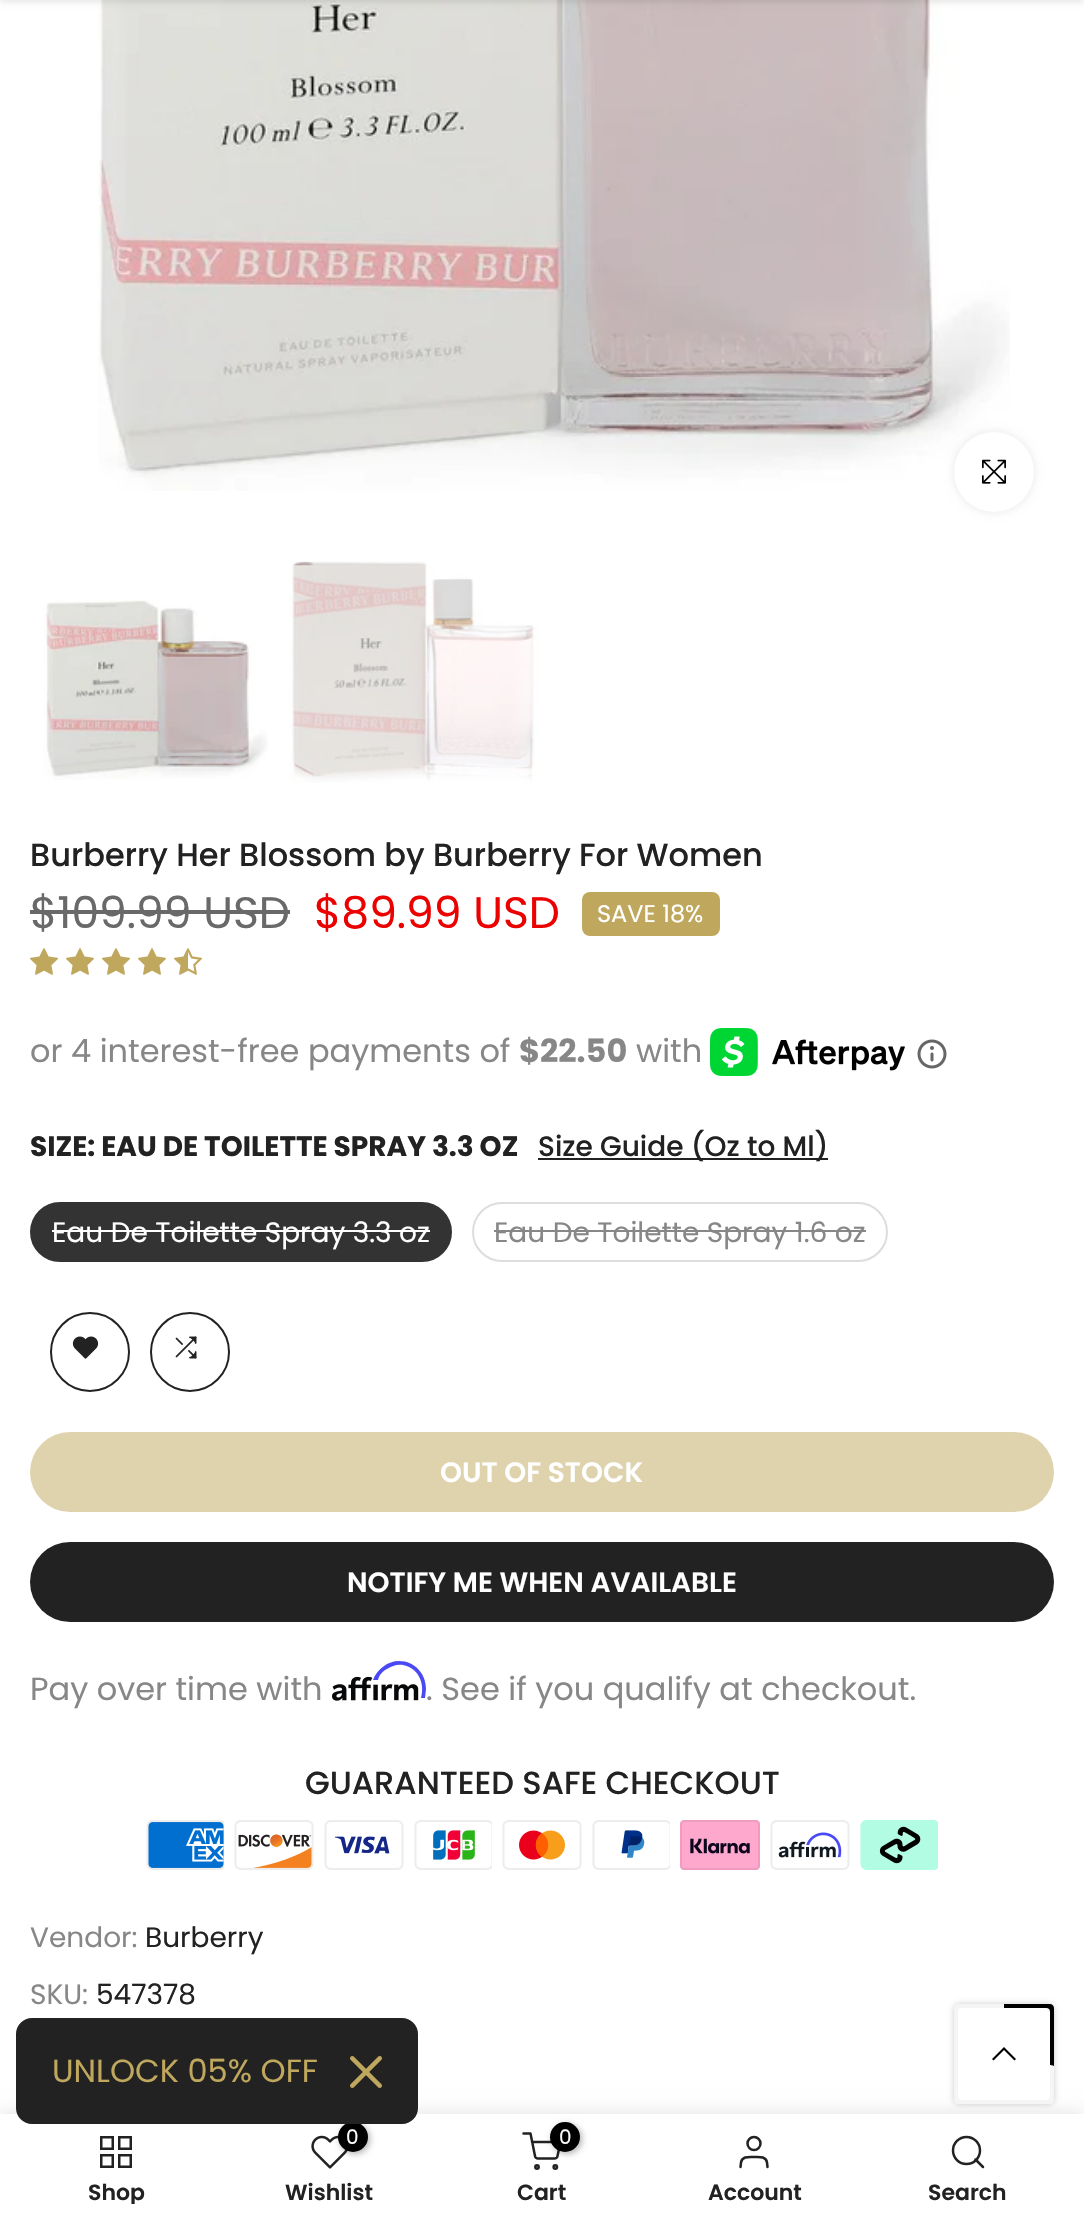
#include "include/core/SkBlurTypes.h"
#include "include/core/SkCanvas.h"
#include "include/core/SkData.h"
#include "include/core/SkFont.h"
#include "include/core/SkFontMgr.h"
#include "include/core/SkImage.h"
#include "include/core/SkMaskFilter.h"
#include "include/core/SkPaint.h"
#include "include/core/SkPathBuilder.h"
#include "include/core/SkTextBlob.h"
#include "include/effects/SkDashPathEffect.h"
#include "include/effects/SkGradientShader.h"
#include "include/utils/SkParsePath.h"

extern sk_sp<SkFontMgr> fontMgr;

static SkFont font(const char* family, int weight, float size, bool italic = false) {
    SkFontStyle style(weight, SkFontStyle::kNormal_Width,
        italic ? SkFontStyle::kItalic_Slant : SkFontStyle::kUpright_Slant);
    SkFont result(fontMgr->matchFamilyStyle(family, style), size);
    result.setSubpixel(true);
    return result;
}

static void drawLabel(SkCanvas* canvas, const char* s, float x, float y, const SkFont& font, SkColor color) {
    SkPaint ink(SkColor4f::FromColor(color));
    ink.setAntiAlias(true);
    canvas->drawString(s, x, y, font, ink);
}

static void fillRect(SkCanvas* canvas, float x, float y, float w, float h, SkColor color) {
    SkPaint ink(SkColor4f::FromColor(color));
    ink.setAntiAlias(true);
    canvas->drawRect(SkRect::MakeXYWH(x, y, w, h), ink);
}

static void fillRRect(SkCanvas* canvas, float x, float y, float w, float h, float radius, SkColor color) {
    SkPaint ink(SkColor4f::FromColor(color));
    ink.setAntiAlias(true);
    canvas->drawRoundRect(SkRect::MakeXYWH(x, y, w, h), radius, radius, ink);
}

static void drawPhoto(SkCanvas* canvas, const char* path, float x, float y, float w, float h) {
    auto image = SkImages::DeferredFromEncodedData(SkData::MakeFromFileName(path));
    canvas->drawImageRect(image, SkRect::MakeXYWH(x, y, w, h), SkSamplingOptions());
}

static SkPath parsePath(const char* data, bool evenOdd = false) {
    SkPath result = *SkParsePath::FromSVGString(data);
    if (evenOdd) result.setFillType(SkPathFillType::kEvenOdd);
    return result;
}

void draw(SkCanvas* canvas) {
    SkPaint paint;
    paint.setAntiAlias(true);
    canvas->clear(0xFFFFFFFF);
    drawPhoto(canvas, "assets/img1.png", 98, 0, 912, 491);
    paint.setColor(0x1A000000);
    paint.setMaskFilter(SkMaskFilter::MakeBlur(kNormal_SkBlurStyle, 3));
    canvas->drawRect(SkRect::MakeXYWH(0, -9, 1084, 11), paint);
    paint.setMaskFilter(nullptr);
    paint.setColor(0x17000000);
    paint.setMaskFilter(SkMaskFilter::MakeBlur(kNormal_SkBlurStyle, 5));
    canvas->drawRoundRect(SkRect::MakeXYWH(954, 432, 80, 80), 40, 40, paint);
    paint.setMaskFilter(nullptr);
    paint.setColor(0xFFFFFFFF);
    canvas->drawCircle(994, 472, 40, paint);
    drawPhoto(canvas, "assets/img2.png", 982, 459, 24, 25);
    drawPhoto(canvas, "assets/img3.png", 43, 600, 225, 180);
    drawPhoto(canvas, "assets/img4.png", 289, 561, 249, 222);
    SkFont font1 = font("Poppins", 500, 32);
    drawLabel(canvas, "Burberry Her Blossom by Burberry For Women", 30, 866, font1, 0xFF222222);
    SkFont font2 = font("Poppins", 400, 44);
    drawLabel(canvas, "$109.99 USD", 30, 928, font2, 0xFF696969);
    fillRect(canvas, 30, 910, 260, 4, 0xFF696969);
    drawLabel(canvas, "$89.99 USD", 314, 928, font2, 0xFFEC0101);
    fillRRect(canvas, 582, 892, 138, 44, 8, 0xFFBFA75D);
    SkFont font3 = font("Poppins", 400, 24);
    drawLabel(canvas, "SAVE 18%", 597, 922, font3, 0xFFFFFFFF);
    drawPhoto(canvas, "assets/img5.png", 30, 948, 28, 27);
    drawPhoto(canvas, "assets/img5.png", 66, 948, 28, 27);
    drawPhoto(canvas, "assets/img5.png", 102, 948, 28, 27);
    drawPhoto(canvas, "assets/img5.png", 138, 948, 28, 27);
    drawPhoto(canvas, "assets/img6.png", 174, 948, 28, 27);
    SkFont font4 = font("Poppins", 400, 32);
    drawLabel(canvas, "or 4 interest-free payments of", 30, 1062, font4, 0xFF878787);
    SkFont font5 = font("Poppins", 700, 32);
    drawLabel(canvas, "$22.50", 519, 1062, font5, 0xFF878787);
    drawLabel(canvas, "with", 636, 1062, font4, 0xFF878787);
    drawPhoto(canvas, "assets/img7.png", 710, 1028, 195, 48);
    drawPhoto(canvas, "assets/img8.png", 917, 1039, 30, 30);
    SkFont font6 = font("Poppins", 700, 28);
    drawLabel(canvas, "SIZE: EAU DE TOILETTE SPRAY 3.3 OZ", 30, 1156, font6, 0xFF222222);
    fillRect(canvas, 538, 1158, 290, 2, 0xFF222222);
    SkFont font7 = font("Poppins", 500, 28);
    drawLabel(canvas, "Size Guide (Oz to Ml)", 538, 1156, font7, 0xFF222222);
    paint.setColor(0xFF333333);
    canvas->drawRoundRect(SkRect::MakeXYWH(31, 1203, 420, 58), 29, 29, paint);
    paint.setStroke(true);
    paint.setStrokeWidth(2);
    canvas->drawRoundRect(SkRect::MakeXYWH(31, 1203, 420, 58), 29, 29, paint);
    SkFont font8 = font("Poppins", 400, 28);
    drawLabel(canvas, "Eau De Toilette Spray 3.3 oz", 52, 1242, font8, 0xFFFFFFFF);
    fillRect(canvas, 52, 1230, 378, 2, 0xFFFFFFFF);
    paint.setColor(0xFFDDDDDD);
    canvas->drawRoundRect(SkRect::MakeXYWH(473, 1203, 414, 58), 29, 29, paint);
    drawLabel(canvas, "Eau De Toilette Spray 1.6 oz", 494, 1242, font8, 0xFF878787);
    fillRect(canvas, 494, 1230, 372, 2, 0xFF878787);
    paint.setColor(0xFF222222);
    canvas->drawCircle(90, 1352, 39, paint);
    drawPhoto(canvas, "assets/img9.png", 72, 1336, 27, 23);
    canvas->drawCircle(190, 1352, 39, paint);
    drawPhoto(canvas, "assets/img10.png", 175, 1336, 22, 23);
    fillRRect(canvas, 30, 1432, 1024, 80, 40, 0xFFDFD3AE);
    SkFont font9 = font("Poppins", 600, 28);
    drawLabel(canvas, "OUT OF STOCK", 440, 1482, font9, 0xFFFFFFFF);
    fillRRect(canvas, 30, 1542, 1024, 80, 40, 0xFF222222);
    drawLabel(canvas, "NOTIFY ME WHEN AVAILABLE", 347, 1592, font9, 0xFFFFFFFF);
    drawLabel(canvas, "Pay over time with", 30, 1700, font4, 0xFF878787);
    drawPhoto(canvas, "assets/img11.png", 332, 1676, 87, 25);
    paint.setStroke(false);
    paint.setColor(0xFF4A4AF4);
    canvas->drawPath(parsePath("M399 1661C388 1661 377 1669 373 1680H378C379 1675 383 1671 387 1669C392 1666 397 1664 403 1665C419 1668 425 1684 421 1698H425L426 1689C426 1674 415 1661 399 1661Z"), paint);
    drawLabel(canvas, ". See if you qualify at checkout.", 426, 1700, font4, 0xFF878787);
    drawLabel(canvas, "GUARANTEED SAFE CHECKOUT", 305, 1794, font1, 0xFF222222);
    drawPhoto(canvas, "assets/img12.png", 146, 1820, 78, 50);
    drawPhoto(canvas, "assets/img13.png", 234, 1820, 80, 50);
    drawPhoto(canvas, "assets/img14.png", 324, 1820, 80, 50);
    drawPhoto(canvas, "assets/img15.png", 414, 1820, 78, 50);
    drawPhoto(canvas, "assets/img16.png", 502, 1820, 80, 50);
    drawPhoto(canvas, "assets/img17.png", 592, 1820, 78, 50);
    drawPhoto(canvas, "assets/img18.png", 680, 1820, 80, 50);
    drawPhoto(canvas, "assets/img19.png", 770, 1820, 80, 50);
    drawPhoto(canvas, "assets/img20.png", 860, 1820, 78, 50);
    drawLabel(canvas, "Vendor:", 30, 1947, font8, 0xFF878787);
    drawLabel(canvas, "Burberry", 145, 1947, font8, 0xFF222222);
    drawLabel(canvas, "SKU:", 30, 2004, font8, 0xFF878787);
    drawLabel(canvas, "547378", 96, 2004, font8, 0xFF222222);
    paint.setColor(0x1F000000);
    paint.setMaskFilter(SkMaskFilter::MakeBlur(kNormal_SkBlurStyle, 9));
    canvas->drawRect(SkRect::MakeXYWH(0, 2114, 1084, 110), paint);
    paint.setMaskFilter(nullptr);
    fillRect(canvas, 0, 2114, 1084, 109, 0xFFFFFFFF);
    drawPhoto(canvas, "assets/img22.png", 311, 2135, 37, 34);
    paint.setColor(0x4D000000);
    paint.setMaskFilter(SkMaskFilter::MakeBlur(kNormal_SkBlurStyle, 3));
    canvas->drawRoundRect(SkRect::MakeXYWH(340, 2124, 30, 30), 15, 15, paint);
    paint.setMaskFilter(nullptr);
    paint.setColor(0xFF000000);
    canvas->drawCircle(353, 2137, 15, paint);
    paint.setColor(0xFF222222);
    canvas->drawRoundRect(SkRect::MakeXYWH(18, 2020, 398, 102), 14, 14, paint);
    paint.setStroke(true);
    paint.setStrokeWidth(4);
    canvas->drawRoundRect(SkRect::MakeXYWH(18, 2020, 398, 102), 14, 14, paint);
    SkFont font10 = font("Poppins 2", 400, 32);
    drawLabel(canvas, "UNLOCK 05% OFF", 52, 2082, font10, 0xFFBFA75D);
    drawPhoto(canvas, "assets/img21.png", 350, 2056, 32, 32);
    paint.setStroke(false);
    paint.setColor(0x33000000);
    paint.setMaskFilter(SkMaskFilter::MakeBlur(kNormal_SkBlurStyle, 3));
    canvas->drawRoundRect(SkRect::MakeXYWH(954, 2004, 100, 100), 6, 6, paint);
    paint.setMaskFilter(nullptr);
    paint.setColor(0xFF000000);
    canvas->drawPath(parsePath("M1004 2054L1054 2066V2008C1054 2006 1052 2004 1050 2004H1004Z"), paint);
    paint.setColor(0xFFF5F5F5);
    canvas->drawPath(parsePath("M1004 2054V2004H958C956 2004 954 2006 954 2008V2100C954 2102 956 2104 958 2104H1050C1052 2104 1054 2102 1054 2100V2066Z"), paint);
    fillRRect(canvas, 958, 2008, 92, 92, 4, 0xFFFFFFFF);
    paint.setColor(0xFF000000);
    canvas->drawPath(parsePath("M1005.5 2048.5L1004 2047L992 2059L993.5 2060.5L1004 2050L1014.5 2060.5L1016 2059L1010 2053Z"), paint);
    paint.setStroke(true);
    paint.setStrokeWidth(2.5f);
    paint.setColor(0xFF222222);
    canvas->drawRect(SkRect::MakeXYWH(101.25f, 2137.25f, 11.5f, 11.5f), paint);
    canvas->drawRect(SkRect::MakeXYWH(119.25f, 2137.25f, 11.5f, 11.5f), paint);
    canvas->drawRect(SkRect::MakeXYWH(101.25f, 2155.25f, 11.5f, 11.5f), paint);
    canvas->drawRect(SkRect::MakeXYWH(119.25f, 2155.25f, 11.5f, 11.5f), paint);
    canvas->save();
    canvas->clipRect(SkRect::MakeXYWH(30, 2182, 172, 22));
    SkFont font11 = font("Poppins", 600, 22);
    drawLabel(canvas, "Shop", 88, 2200, font11, 0xFF222222);
    canvas->restore();
    SkFont font12 = font("Poppins", 400, 20);
    drawLabel(canvas, "0", 346, 2144, font12, 0xFFFFFFFF);
    drawLabel(canvas, "Wishlist", 285, 2200, font11, 0xFF222222);
    paint.setStrokeCap(SkPaint::kRound_Cap);
    paint.setStrokeJoin(SkPaint::kRound_Join);
    canvas->drawPath(parsePath("M523.5 2133.5H530.5L535 2156C535 2157.5 536.5 2158.5 538 2158.5H554.5C556 2158.5 557.5 2157.5 557.5 2156L560.5 2142H532"), paint);
    paint.setStroke(false);
    paint.setColor(0x4D000000);
    paint.setMaskFilter(SkMaskFilter::MakeBlur(kNormal_SkBlurStyle, 3));
    canvas->drawRoundRect(SkRect::MakeXYWH(552, 2124, 30, 30), 15, 15, paint);
    paint.setMaskFilter(nullptr);
    paint.setColor(0xFF000000);
    canvas->drawCircle(565, 2137, 15, paint);
    drawLabel(canvas, "0", 559, 2144, font12, 0xFFFFFFFF);
    paint.setStroke(true);
    paint.setStrokeCap(SkPaint::kButt_Cap);
    paint.setStrokeJoin(SkPaint::kMiter_Join);
    paint.setColor(0xFF222222);
    canvas->drawCircle(537, 2167, 1.7f, paint);
    canvas->drawCircle(555.3f, 2167, 1.7f, paint);
    drawLabel(canvas, "Cart", 517, 2200, font11, 0xFF222222);
    canvas->drawCircle(754, 2143.5f, 6.5f, paint);
    paint.setStrokeCap(SkPaint::kRound_Cap);
    paint.setStrokeJoin(SkPaint::kRound_Join);
    canvas->drawPath(parsePath("M767.5 2167L767 2162.5C766 2156 759 2157 754 2157C749 2157 742 2156 741 2162.5L740.5 2167"), paint);
    drawLabel(canvas, "Account", 708, 2200, font11, 0xFF222222);
    paint.setStrokeCap(SkPaint::kButt_Cap);
    paint.setStrokeJoin(SkPaint::kMiter_Join);
    canvas->drawCircle(966.5f, 2150.5f, 13.5f, paint);
    paint.setStrokeCap(SkPaint::kRound_Cap);
    paint.setStrokeJoin(SkPaint::kRound_Join);
    canvas->drawPath(parsePath("M983 2167L975.5 2159.5"), paint);
    drawLabel(canvas, "Search", 928, 2200, font11, 0xFF222222);
}
